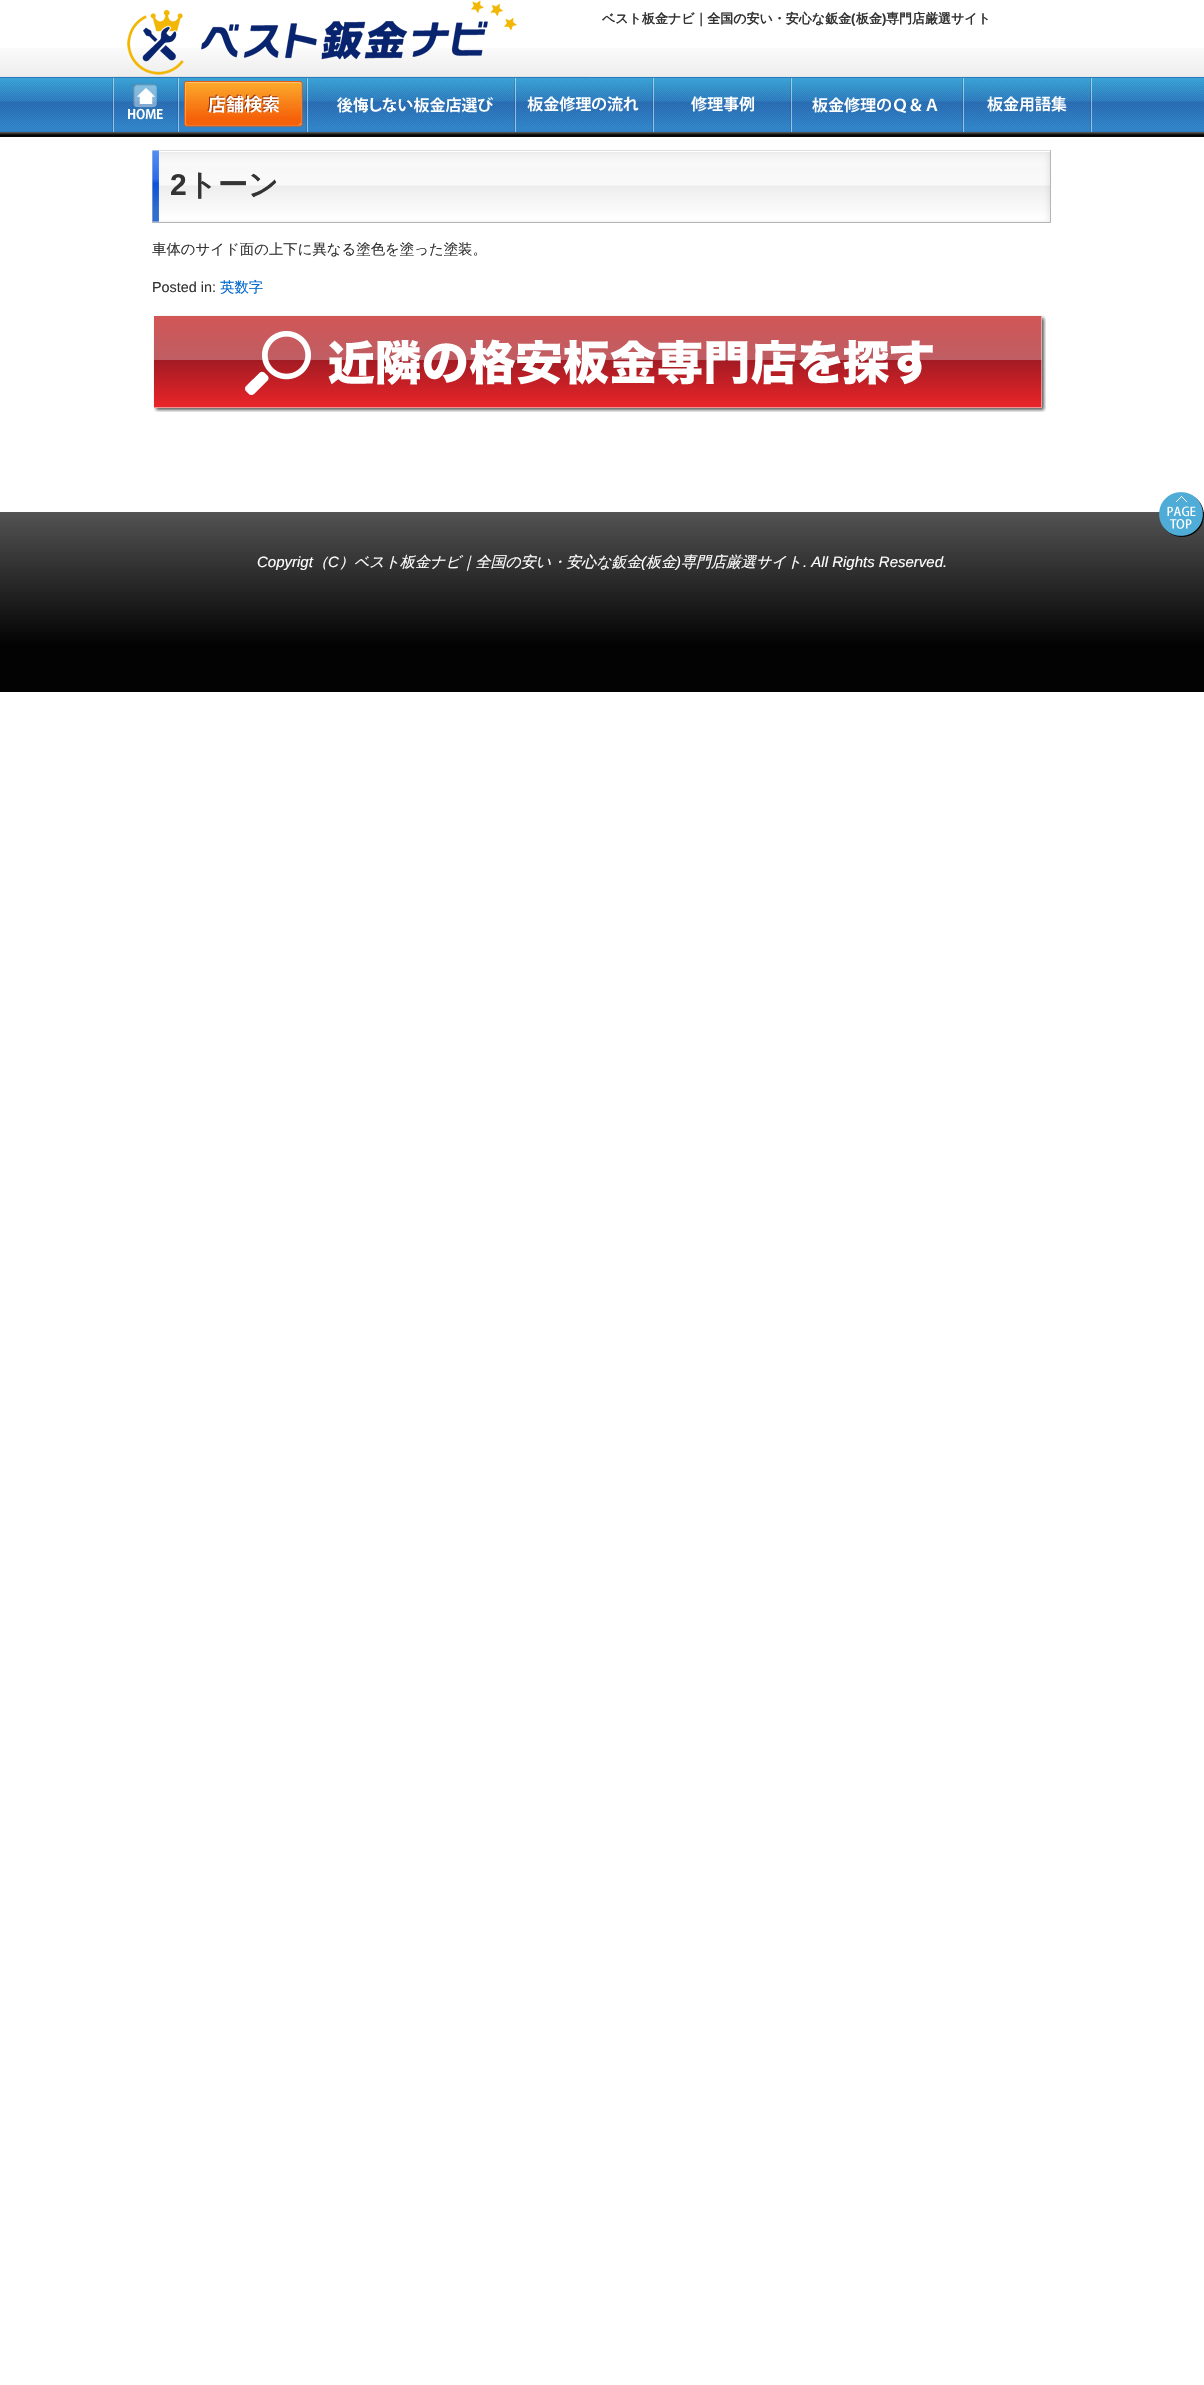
#include "include/core/SkBlurTypes.h"
#include "include/core/SkCanvas.h"
#include "include/core/SkData.h"
#include "include/core/SkFont.h"
#include "include/core/SkFontMgr.h"
#include "include/core/SkImage.h"
#include "include/core/SkMaskFilter.h"
#include "include/core/SkPaint.h"
#include "include/core/SkPathBuilder.h"
#include "include/core/SkTextBlob.h"
#include "include/effects/SkDashPathEffect.h"
#include "include/effects/SkGradientShader.h"
#include "include/utils/SkParsePath.h"

extern sk_sp<SkFontMgr> fontMgr;

static SkFont font(const char* family, int weight, float size, bool italic = false) {
    SkFontStyle style(weight, SkFontStyle::kNormal_Width,
        italic ? SkFontStyle::kItalic_Slant : SkFontStyle::kUpright_Slant);
    SkFont result(fontMgr->matchFamilyStyle(family, style), size);
    result.setSubpixel(true);
    return result;
}

static void drawLabel(SkCanvas* canvas, const char* s, float x, float y, const SkFont& font, SkColor color) {
    SkPaint ink(SkColor4f::FromColor(color));
    ink.setAntiAlias(true);
    canvas->drawString(s, x, y, font, ink);
}

static void drawPhoto(SkCanvas* canvas, const char* path, float x, float y, float w, float h) {
    auto image = SkImages::DeferredFromEncodedData(SkData::MakeFromFileName(path));
    canvas->drawImageRect(image, SkRect::MakeXYWH(x, y, w, h), SkSamplingOptions());
}

void draw(SkCanvas* canvas) {
    SkPaint paint;
    paint.setAntiAlias(true);
    canvas->clear(0xFFFFFFFF);
    drawPhoto(canvas, "assets/img1.png", 0, 48, 1204, 89);
    drawPhoto(canvas, "assets/img2.png", 112, 0, 477, 77);
    SkFont font1 = font("WenQuanYi Zen Hei", 700, 13);
    drawLabel(canvas, "ベスト板金ナビ｜全国の安い・安心な鈑金", 602, 23, font1, 0xFF333333);
    SkFont font2 = font("Liberation Sans", 700, 13);
    drawLabel(canvas, "(", 851, 23, font2, 0xFF333333);
    drawLabel(canvas, "板金", 856, 23, font1, 0xFF333333);
    drawLabel(canvas, ")", 882, 23, font2, 0xFF333333);
    drawLabel(canvas, "専門店厳選サイト", 886, 23, font1, 0xFF333333);
    drawPhoto(canvas, "assets/img3.png", 112, 77, 66, 55);
    drawPhoto(canvas, "assets/img4.png", 178, 77, 129, 55);
    drawPhoto(canvas, "assets/img5.png", 307, 77, 208, 55);
    drawPhoto(canvas, "assets/img6.png", 515, 77, 139, 55);
    drawPhoto(canvas, "assets/img7.png", 654, 77, 137, 55);
    drawPhoto(canvas, "assets/img8.png", 791, 77, 172, 55);
    drawPhoto(canvas, "assets/img9.png", 963, 77, 129, 55);
    drawPhoto(canvas, "assets/img10.png", 152, 150, 899, 73);
    SkFont font3 = font("Liberation Sans", 700, 30);
    drawLabel(canvas, "2", 170, 195, font3, 0xFF333333);
    SkFont font4 = font("WenQuanYi Zen Hei", 700, 30);
    drawLabel(canvas, "トーン", 187, 195, font4, 0xFF333333);
    SkFont font5 = font("WenQuanYi Zen Hei", 500, 14.4f);
    drawLabel(canvas, "車体のサイド面の上下に異なる塗色を塗った塗装。", 152, 254, font5, 0xFF333333);
    SkFont font6 = font("Liberation Sans", 400, 14.4f);
    drawLabel(canvas, "Posted in:", 152, 292, font6, 0xFF333333);
    drawLabel(canvas, "英数字", 220, 292, font5, 0xFF0066CC);
    drawPhoto(canvas, "assets/img11.png", 153, 315, 893, 97);
    drawPhoto(canvas, "assets/img12.png", 0, 512, 1204, 180);
    drawPhoto(canvas, "assets/img13.png", 1159, 492, 45, 45);
    SkFont font7 = font("Liberation Sans", 400, 15, true);
    drawLabel(canvas, "Copyrigt", 257, 567, font7, 0xFFFFFFFF);
    SkFont font8 = font("WenQuanYi Zen Hei", 500, 15, true);
    drawLabel(canvas, "（", 313, 567, font8, 0xFFFFFFFF);
    drawLabel(canvas, "C", 328, 567, font7, 0xFFFFFFFF);
    drawLabel(canvas, "）ベスト板金ナビ｜全国の安い・安心な鈑金", 339, 567, font8, 0xFFFFFFFF);
    drawLabel(canvas, "(", 641, 567, font7, 0xFFFFFFFF);
    drawLabel(canvas, "板金", 646, 567, font8, 0xFFFFFFFF);
    drawLabel(canvas, "専門店厳選サイト", 681, 567, font8, 0xFFFFFFFF);
    drawLabel(canvas, ")", 676, 567, font7, 0xFFFFFFFF);
    drawLabel(canvas, ". All Rights Reserved.", 803, 567, font7, 0xFFFFFFFF);
}
